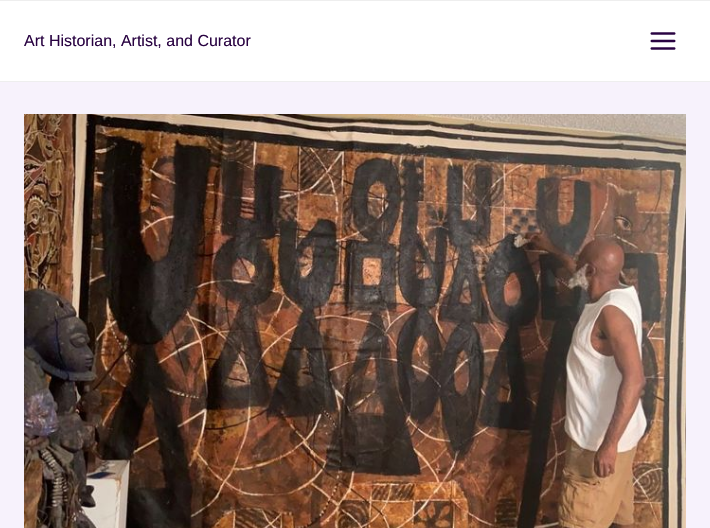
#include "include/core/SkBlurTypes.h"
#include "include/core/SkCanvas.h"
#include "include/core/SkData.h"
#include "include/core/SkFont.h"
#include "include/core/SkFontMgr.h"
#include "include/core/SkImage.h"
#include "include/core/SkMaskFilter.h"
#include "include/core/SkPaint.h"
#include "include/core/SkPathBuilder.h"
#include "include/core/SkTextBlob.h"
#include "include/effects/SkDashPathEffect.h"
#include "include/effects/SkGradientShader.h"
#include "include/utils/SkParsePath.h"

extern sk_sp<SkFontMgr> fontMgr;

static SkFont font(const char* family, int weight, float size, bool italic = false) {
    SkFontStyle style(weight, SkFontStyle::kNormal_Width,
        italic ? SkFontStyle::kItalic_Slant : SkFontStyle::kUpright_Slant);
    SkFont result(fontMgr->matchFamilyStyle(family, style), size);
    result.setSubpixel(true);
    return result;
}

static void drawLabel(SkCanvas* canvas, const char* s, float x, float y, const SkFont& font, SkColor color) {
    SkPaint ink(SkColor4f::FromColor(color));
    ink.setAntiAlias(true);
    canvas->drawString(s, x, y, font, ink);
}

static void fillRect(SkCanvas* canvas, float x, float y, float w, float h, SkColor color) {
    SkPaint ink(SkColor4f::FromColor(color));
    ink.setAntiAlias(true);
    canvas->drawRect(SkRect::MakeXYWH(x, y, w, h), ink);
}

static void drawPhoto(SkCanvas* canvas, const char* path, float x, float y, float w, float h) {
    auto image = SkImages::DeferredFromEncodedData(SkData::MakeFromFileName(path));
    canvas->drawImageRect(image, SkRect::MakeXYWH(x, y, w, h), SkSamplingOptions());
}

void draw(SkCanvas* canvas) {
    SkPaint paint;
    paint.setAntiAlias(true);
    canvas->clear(0xFFF7F2FC);
    fillRect(canvas, 0, 1, 710, 80, 0xFFFFFFFF);
    fillRect(canvas, 0, 0, 710, 1, 0xFFEEEEEE);
    fillRect(canvas, 0, 81, 710, 1, 0xFFEEEEEE);
    SkFont font1 = font("Liberation Sans", 400, 16);
    drawLabel(canvas, "Art Historian, Artist, and Curator", 24, 46, font1, 0xFF290342);
    drawPhoto(canvas, "assets/img1.png", 650, 32, 26, 18);
    drawPhoto(canvas, "assets/img2.png", 24, 114, 662, 414);
}
